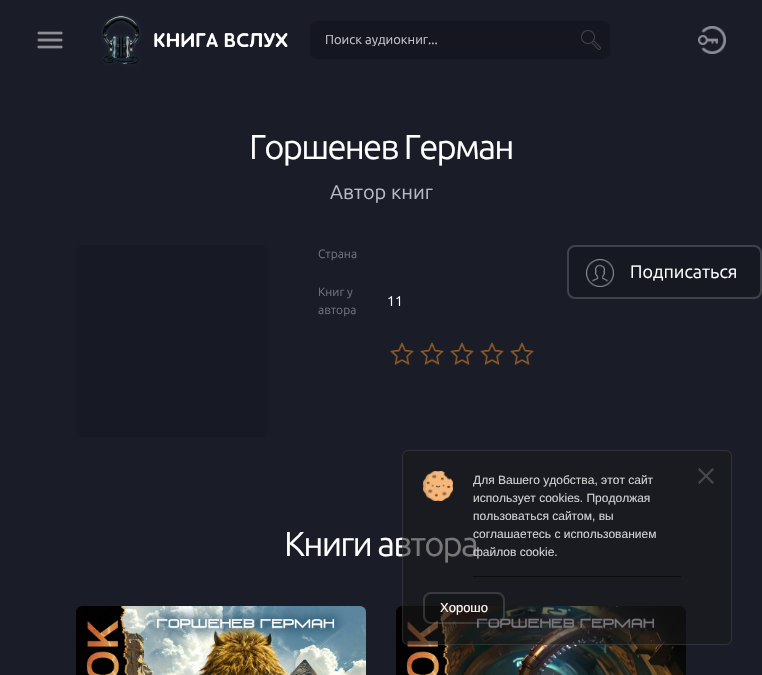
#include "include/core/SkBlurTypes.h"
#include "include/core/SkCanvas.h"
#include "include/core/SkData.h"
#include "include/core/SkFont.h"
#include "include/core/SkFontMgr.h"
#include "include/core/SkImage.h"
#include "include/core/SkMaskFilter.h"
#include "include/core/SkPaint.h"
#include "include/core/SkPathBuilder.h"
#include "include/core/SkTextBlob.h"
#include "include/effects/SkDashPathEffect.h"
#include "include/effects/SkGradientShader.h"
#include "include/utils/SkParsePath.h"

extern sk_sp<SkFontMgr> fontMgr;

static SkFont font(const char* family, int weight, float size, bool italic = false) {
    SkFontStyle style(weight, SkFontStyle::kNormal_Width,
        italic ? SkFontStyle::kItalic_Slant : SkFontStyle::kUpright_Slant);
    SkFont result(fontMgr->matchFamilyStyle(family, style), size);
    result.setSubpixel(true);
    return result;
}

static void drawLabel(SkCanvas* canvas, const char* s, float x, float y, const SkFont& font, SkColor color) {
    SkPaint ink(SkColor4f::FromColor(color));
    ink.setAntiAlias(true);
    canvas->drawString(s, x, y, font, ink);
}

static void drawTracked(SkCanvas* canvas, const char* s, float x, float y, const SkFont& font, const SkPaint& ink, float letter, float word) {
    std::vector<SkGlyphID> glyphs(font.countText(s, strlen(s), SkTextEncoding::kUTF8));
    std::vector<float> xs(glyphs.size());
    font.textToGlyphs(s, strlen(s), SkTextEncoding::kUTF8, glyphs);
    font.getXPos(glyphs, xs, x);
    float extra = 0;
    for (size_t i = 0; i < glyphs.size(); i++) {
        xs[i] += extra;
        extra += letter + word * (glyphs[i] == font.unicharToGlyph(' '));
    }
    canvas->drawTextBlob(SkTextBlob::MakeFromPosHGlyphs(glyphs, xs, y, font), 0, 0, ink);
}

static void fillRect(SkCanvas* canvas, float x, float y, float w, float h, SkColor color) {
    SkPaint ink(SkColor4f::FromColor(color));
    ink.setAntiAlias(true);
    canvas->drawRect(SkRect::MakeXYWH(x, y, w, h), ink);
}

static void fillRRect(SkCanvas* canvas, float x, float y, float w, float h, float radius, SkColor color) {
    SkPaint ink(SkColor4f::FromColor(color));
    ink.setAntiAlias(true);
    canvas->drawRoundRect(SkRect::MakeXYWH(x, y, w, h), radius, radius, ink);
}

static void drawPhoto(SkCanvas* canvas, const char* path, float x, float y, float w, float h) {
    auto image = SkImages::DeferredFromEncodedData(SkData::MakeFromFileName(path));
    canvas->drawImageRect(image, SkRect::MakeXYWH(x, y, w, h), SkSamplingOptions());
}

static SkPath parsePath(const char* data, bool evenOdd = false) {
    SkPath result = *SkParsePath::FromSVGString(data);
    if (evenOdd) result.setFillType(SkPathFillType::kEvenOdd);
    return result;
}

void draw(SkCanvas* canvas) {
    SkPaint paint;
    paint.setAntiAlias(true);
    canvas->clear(0xFF1A1C28);
    drawPhoto(canvas, "assets/img1.png", 37, 31, 26, 18);
    drawPhoto(canvas, "assets/img2.png", 101, 14, 187, 52);
    fillRRect(canvas, 310, 21, 300, 38, 6, 0xFF151620);
    drawPhoto(canvas, "assets/img3.png", 581, 30, 20, 20);
    canvas->save();
    canvas->clipRect(SkRect::MakeXYWH(325, 32, 255, 14));
    SkFont font1 = font("Ubuntu", 400, 13);
    drawLabel(canvas, "Поиск аудиокниг...", 325, 44, font1, 0xFFC5C5C7);
    canvas->restore();
    drawPhoto(canvas, "assets/img4.png", 581, 30, 20, 20);
    drawPhoto(canvas, "assets/img5.png", 698, 26, 28, 28);
    SkFont font2 = font("Ubuntu", 400, 34.5f);
    paint.setColor(0xFFFFFFFF);
    drawTracked(canvas, "Горшенев Герман", 249, 159, font2, paint, -1.75f, 0);
    SkFont font3 = font("Ubuntu", 400, 20);
    drawLabel(canvas, "Автор книг", 330, 199, font3, 0xFFBABBBF);
    fillRRect(canvas, 76, 245, 192, 192, 6, 0xFF171924);
    SkFont font4 = font("Ubuntu", 400, 12);
    drawLabel(canvas, "Страна", 318, 258, font4, 0xFF71727A);
    drawLabel(canvas, "Книг у", 318, 296, font4, 0xFF71727A);
    drawLabel(canvas, "автора", 318, 314, font4, 0xFF71727A);
    SkFont font5 = font("Ubuntu", 400, 14);
    drawLabel(canvas, "11", 387, 306, font5, 0xFFFFFFFF);
    drawPhoto(canvas, "assets/img6.png", 390, 342, 144, 23);
    fillRRect(canvas, 567, 245, 195, 54, 8, 0xFF161822);
    paint.setStroke(true);
    paint.setStrokeWidth(2);
    paint.setColor(0x2EFFFFFF);
    canvas->drawRoundRect(SkRect::MakeXYWH(568, 246, 193, 52), 7, 7, paint);
    fillRect(canvas, 595, 271, 1, 2, 0xFF13151E);
    drawPhoto(canvas, "assets/img7.png", 586, 259, 28, 28);
    SkFont font6 = font("Ubuntu", 400, 18);
    drawLabel(canvas, "Подписаться", 630, 278, font6, 0xFFFFFFFF);
    paint.setStroke(false);
    paint.setColor(0xFFFFFFFF);
    drawTracked(canvas, "Книги автора", 284, 556, font2, paint, -1.75f, 0);
    drawPhoto(canvas, "assets/img8.png", 76, 606, 290, 69);
    drawPhoto(canvas, "assets/img9.png", 396, 606, 290, 69);
    fillRRect(canvas, 402, 450, 330, 195, 6, 0x961A1A1A);
    paint.setStroke(true);
    paint.setStrokeWidth(1);
    paint.setColor(0x1AFFFFFF);
    canvas->drawRoundRect(SkRect::MakeXYWH(402.5f, 450.5f, 329, 194), 5.5f, 5.5f, paint);
    drawPhoto(canvas, "assets/img10.png", 423, 471, 30, 30);
    SkFont font7 = font("Liberation Sans", 400, 12);
    drawLabel(canvas, "Для Вашего удобства, этот сайт", 473, 484, font7, 0xFFD1D1D2);
    paint.setStroke(false);
    paint.setColor(0xFF48484C);
    canvas->drawPath(parsePath("M699.5 468L714 482.5L712.5 484L698 469.5Z"), paint);
    canvas->drawPath(parsePath("M698 482.5L712.5 468L714 469.5L699.5 484Z"), paint);
    drawLabel(canvas, "использует cookies. Продолжая", 473, 502, font7, 0xFFD1D1D2);
    drawLabel(canvas, "пользоваться сайтом, вы", 473, 520, font7, 0xFFD1D1D2);
    drawLabel(canvas, "соглашаетесь с использованием", 473, 538, font7, 0xFFD1D1D2);
    drawLabel(canvas, "файлов cookie.", 473, 556, font7, 0xFFD1D1D2);
    fillRect(canvas, 473, 576, 208, 1, 0xFF0D0D10);
    fillRRect(canvas, 423, 592, 82, 32, 8, 0x29000000);
    paint.setStroke(true);
    paint.setStrokeWidth(2);
    paint.setColor(0x26FFFFFF);
    canvas->drawRoundRect(SkRect::MakeXYWH(424, 593, 80, 30), 7, 7, paint);
    SkFont font8 = font("Liberation Sans", 400, 13);
    drawLabel(canvas, "Хорошо", 440, 612, font8, 0xFFFFFFFF);
}
